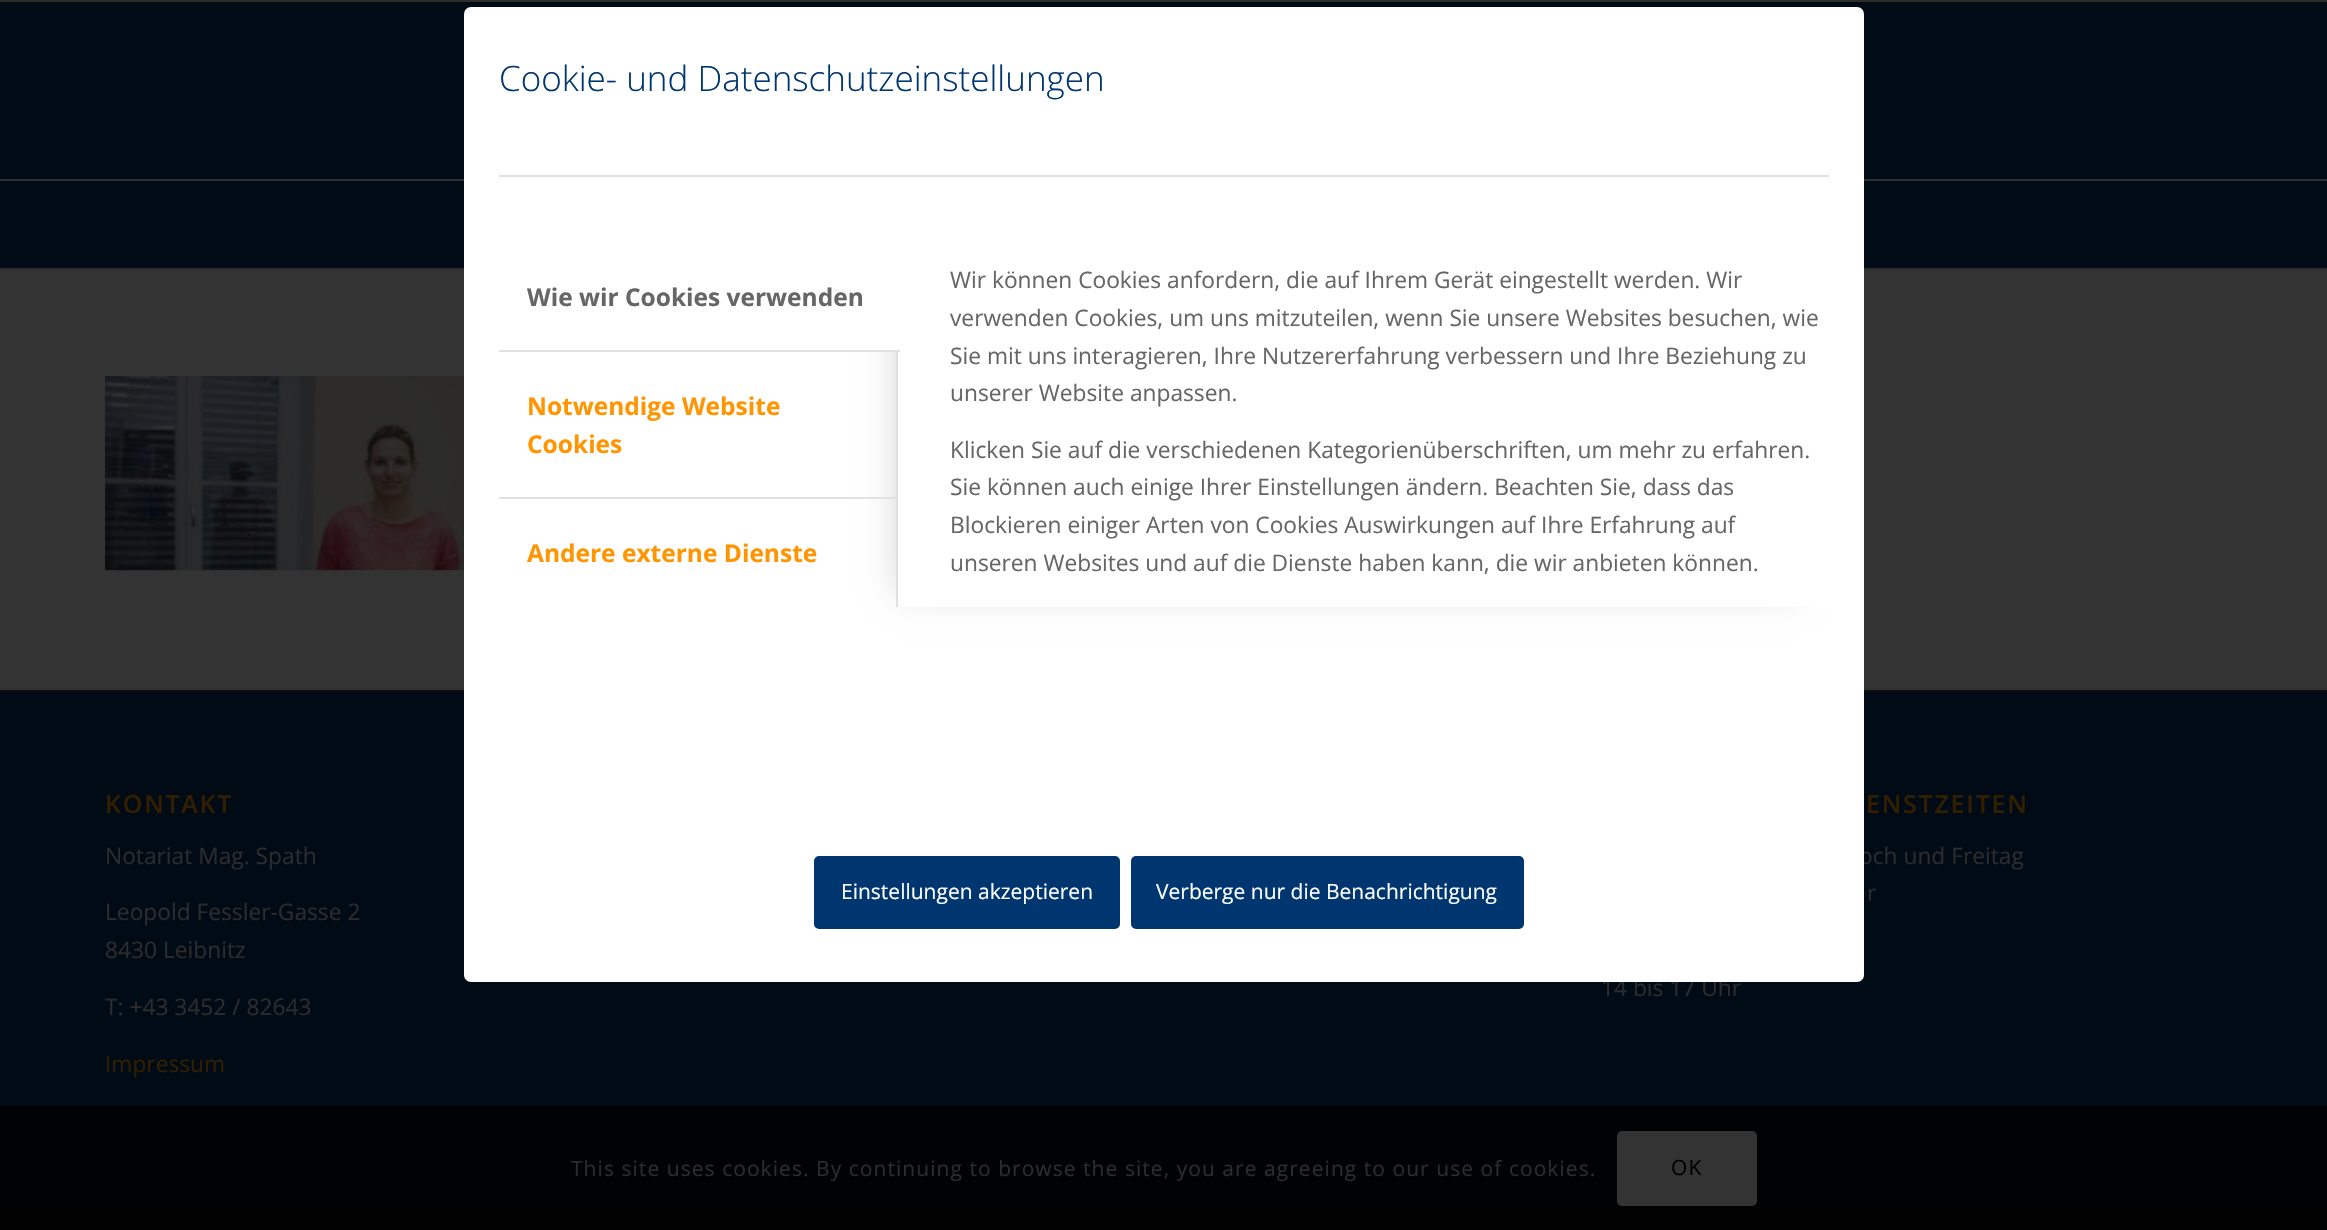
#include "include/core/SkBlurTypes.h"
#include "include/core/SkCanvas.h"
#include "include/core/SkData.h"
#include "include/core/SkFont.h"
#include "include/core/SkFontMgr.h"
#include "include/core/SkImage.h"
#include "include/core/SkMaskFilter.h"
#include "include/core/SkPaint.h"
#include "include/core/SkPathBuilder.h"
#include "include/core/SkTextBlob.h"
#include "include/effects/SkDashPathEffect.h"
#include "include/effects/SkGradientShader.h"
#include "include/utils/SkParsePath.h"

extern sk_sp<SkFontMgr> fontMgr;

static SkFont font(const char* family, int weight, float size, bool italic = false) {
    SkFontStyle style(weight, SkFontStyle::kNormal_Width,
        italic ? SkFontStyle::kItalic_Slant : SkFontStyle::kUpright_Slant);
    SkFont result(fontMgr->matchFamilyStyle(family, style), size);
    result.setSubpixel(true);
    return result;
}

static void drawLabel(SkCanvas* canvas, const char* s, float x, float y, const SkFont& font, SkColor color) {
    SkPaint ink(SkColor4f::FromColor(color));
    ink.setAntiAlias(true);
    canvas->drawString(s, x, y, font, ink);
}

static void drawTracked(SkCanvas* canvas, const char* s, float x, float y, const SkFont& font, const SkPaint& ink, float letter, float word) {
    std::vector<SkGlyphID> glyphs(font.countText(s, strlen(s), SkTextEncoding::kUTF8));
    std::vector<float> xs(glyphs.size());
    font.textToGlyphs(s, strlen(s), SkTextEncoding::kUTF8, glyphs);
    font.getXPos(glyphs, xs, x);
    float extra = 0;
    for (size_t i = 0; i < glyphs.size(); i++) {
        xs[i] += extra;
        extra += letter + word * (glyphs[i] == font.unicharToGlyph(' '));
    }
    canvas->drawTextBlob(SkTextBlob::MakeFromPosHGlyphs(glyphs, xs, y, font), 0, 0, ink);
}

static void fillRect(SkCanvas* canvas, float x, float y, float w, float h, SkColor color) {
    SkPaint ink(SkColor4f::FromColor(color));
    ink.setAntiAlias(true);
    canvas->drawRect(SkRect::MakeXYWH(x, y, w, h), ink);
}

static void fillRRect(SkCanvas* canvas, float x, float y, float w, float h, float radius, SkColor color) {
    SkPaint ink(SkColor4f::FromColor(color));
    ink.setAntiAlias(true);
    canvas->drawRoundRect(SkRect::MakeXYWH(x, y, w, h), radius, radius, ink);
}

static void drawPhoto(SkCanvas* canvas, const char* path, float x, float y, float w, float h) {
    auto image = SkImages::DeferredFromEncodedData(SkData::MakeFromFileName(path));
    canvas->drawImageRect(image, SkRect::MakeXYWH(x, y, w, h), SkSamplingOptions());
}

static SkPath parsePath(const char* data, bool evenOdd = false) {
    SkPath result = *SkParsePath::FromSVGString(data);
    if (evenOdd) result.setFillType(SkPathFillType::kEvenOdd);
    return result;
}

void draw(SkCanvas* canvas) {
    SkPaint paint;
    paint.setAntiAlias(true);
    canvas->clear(0xFF000B16);
    fillRect(canvas, 0, 268, 2327, 2, 0xFF2D2D2D);
    fillRect(canvas, 0, 179, 2327, 2, 0xFF2D2D2D);
    fillRect(canvas, 0, 270, 2327, 420, 0xFF333333);
    fillRect(canvas, 0, 690, 2327, 2, 0xFF0E0E0E);
    SkFont font1 = font("Open Sans", 400, 22.75f);
    drawLabel(canvas, "och und Freitag", 1859, 864, font1, 0xFF2C2C2C);
    drawLabel(canvas, "14 bis 17 Uhr", 1601, 996, font1, 0xFF2C2C2C);
    fillRRect(canvas, 464, 7, 1400, 975, 7, 0xFFFFFFFF);
    SkFont font2 = font("Open Sans", 300, 35);
    drawLabel(canvas, "Cookie- und Datenschutzeinstellungen", 499, 91, font2, 0xFF003670);
    fillRect(canvas, 499, 175, 1330, 2, 0xFFE1E1E1);
    canvas->save();
    canvas->clipRect(SkRect::MakeXYWH(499, 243, 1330, 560));
    paint.setColor(0x33000000);
    paint.setMaskFilter(SkMaskFilter::MakeBlur(kNormal_SkBlurStyle, 17.5f));
    canvas->drawRect(SkRect::MakeXYWH(901, 261, 896, 329), paint);
    paint.setMaskFilter(nullptr);
    canvas->restore();
    fillRect(canvas, 896, 350, 2, 149, 0xFFE1E1E1);
    fillRRect(canvas, 898, 243, 931, 364, 4, 0xFFFFFFFF);
    paint.setColor(0xFFFFFFFF);
    canvas->drawPath(parsePath("M503 243H900V352H499V247C499 245 501 243 503 243Z"), paint);
    fillRect(canvas, 499, 350, 401, 2, 0xFFE1E1E1);
    SkFont font3 = font("Open Sans", 700, 24.5f);
    drawLabel(canvas, "Wie wir Cookies verwenden", 527, 306, font3, 0xFF666666);
    fillRect(canvas, 499, 497, 399, 2, 0xFFE1E1E1);
    drawLabel(canvas, "Notwendige Website", 527, 415, font3, 0xFFFF9500);
    drawLabel(canvas, "Cookies", 527, 453, font3, 0xFFFF9500);
    fillRect(canvas, 896, 497, 2, 110, 0xFFE1E1E1);
    drawLabel(canvas, "Andere externe Dienste", 527, 562, font3, 0xFFFF9500);
    drawLabel(canvas, "Wir können Cookies anfordern, die auf Ihrem Gerät eingestellt werden. Wir", 950, 288, font1, 0xFF666666);
    drawLabel(canvas, "verwenden Cookies, um uns mitzuteilen, wenn Sie unsere Websites besuchen, wie", 950, 326, font1, 0xFF666666);
    drawLabel(canvas, "Sie mit uns interagieren, Ihre Nutzererfahrung verbessern und Ihre Beziehung zu", 950, 364, font1, 0xFF666666);
    drawLabel(canvas, "unserer Website anpassen.", 950, 401, font1, 0xFF666666);
    drawLabel(canvas, "Klicken Sie auf die verschiedenen Kategorienüberschriften, um mehr zu erfahren.", 950, 458, font1, 0xFF666666);
    drawLabel(canvas, "Sie können auch einige Ihrer Einstellungen ändern. Beachten Sie, dass das", 950, 495, font1, 0xFF666666);
    drawLabel(canvas, "Blockieren einiger Arten von Cookies Auswirkungen auf Ihre Erfahrung auf", 950, 533, font1, 0xFF666666);
    drawLabel(canvas, "unseren Websites und auf die Dienste haben kann, die wir anbieten können.", 950, 571, font1, 0xFF666666);
    paint.setColor(0xFF003670);
    canvas->drawRoundRect(SkRect::MakeXYWH(816, 858, 302, 69), 3, 3, paint);
    paint.setStroke(true);
    paint.setStrokeWidth(4);
    canvas->drawRoundRect(SkRect::MakeXYWH(816, 858, 302, 69), 3, 3, paint);
    SkFont font4 = font("Open Sans", 400, 21);
    drawLabel(canvas, "Einstellungen akzeptieren", 841, 899, font4, 0xFFFFFFFF);
    paint.setStroke(false);
    canvas->drawRoundRect(SkRect::MakeXYWH(1133, 858, 389, 69), 3, 3, paint);
    paint.setStroke(true);
    canvas->drawRoundRect(SkRect::MakeXYWH(1133, 858, 389, 69), 3, 3, paint);
    drawLabel(canvas, "Verberge nur die Benachrichtigung", 1156, 899, font4, 0xFFFFFFFF);
    fillRect(canvas, 0, 0, 2327, 2, 0xFF2D2D2D);
    fillRect(canvas, 0, 1106, 2327, 100, 0xFF000203);
    drawPhoto(canvas, "assets/img1.png", 105, 376, 359, 195);
    SkFont font5 = font("Open Sans", 600, 25);
    paint.setStroke(false);
    paint.setColor(0xFF331E00);
    drawTracked(canvas, "KONTAKT", 105, 813, font5, paint, 1.75f, 0);
    drawLabel(canvas, "Notariat Mag. Spath", 105, 864, font1, 0xFF2C2C2C);
    drawLabel(canvas, "Leopold Fessler-Gasse 2", 105, 920, font1, 0xFF2C2C2C);
    drawLabel(canvas, "8430 Leibnitz", 105, 958, font1, 0xFF2C2C2C);
    drawLabel(canvas, "T: +43 3452 / 82643", 105, 1015, font1, 0xFF2C2C2C);
    drawLabel(canvas, "Impressum", 105, 1072, font1, 0xFF331E00);
    drawTracked(canvas, "ENSTZEITEN", 1866, 813, font5, paint, 1.75f, 0);
    drawLabel(canvas, "r", 1867, 901, font1, 0xFF2C2C2C);
    fillRect(canvas, 0, 1206, 2327, 24, 0xFF020202);
    paint.setColor(0xFF2C2C2C);
    drawTracked(canvas, "This site uses cookies. By continuing to browse the site, you are agreeing to our use of cookies.", 571, 1176, font4, paint, 1.05f, 0);
    fillRRect(canvas, 1617, 1131, 140, 75, 5, 0xFF333333);
    paint.setColor(0xFF000000);
    drawTracked(canvas, "OK", 1671, 1175, font4, paint, 1.05f, 0);
}
